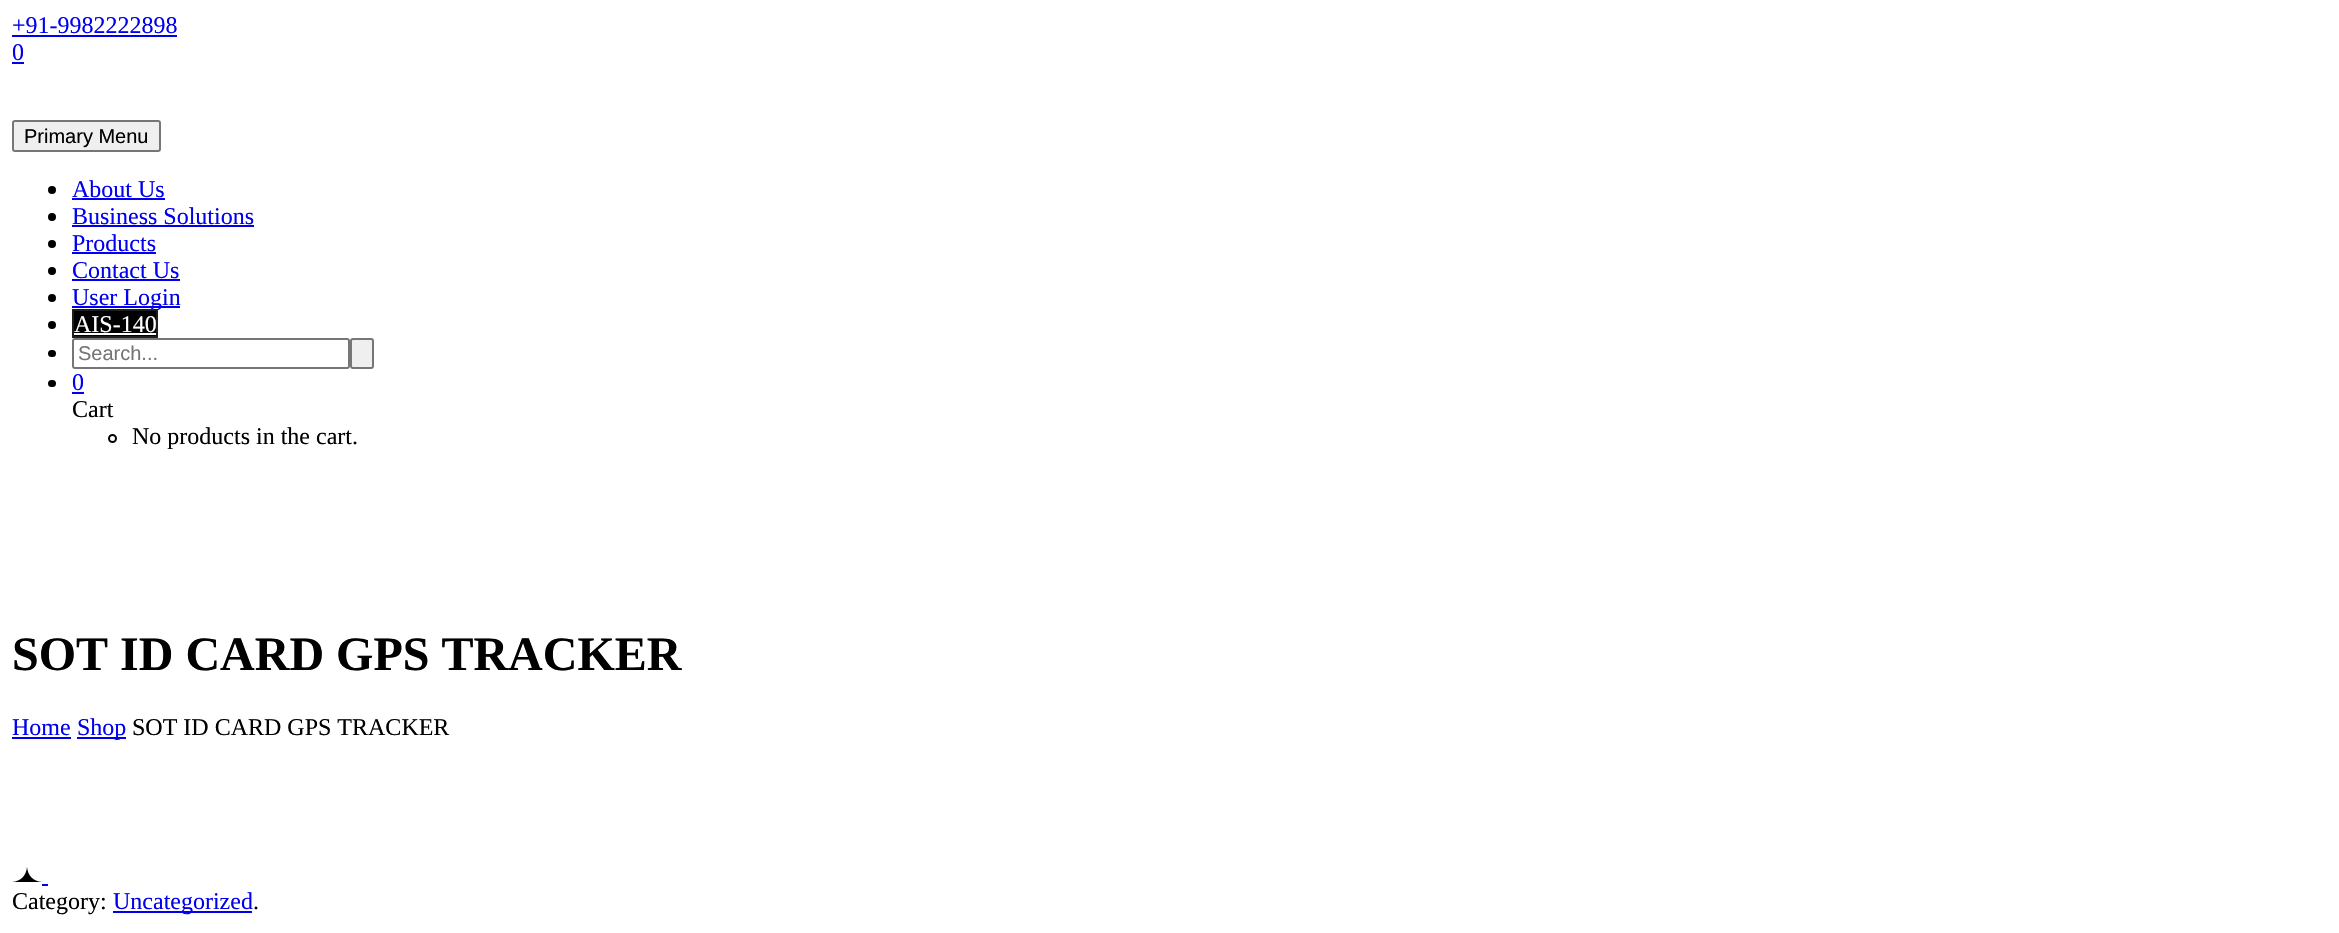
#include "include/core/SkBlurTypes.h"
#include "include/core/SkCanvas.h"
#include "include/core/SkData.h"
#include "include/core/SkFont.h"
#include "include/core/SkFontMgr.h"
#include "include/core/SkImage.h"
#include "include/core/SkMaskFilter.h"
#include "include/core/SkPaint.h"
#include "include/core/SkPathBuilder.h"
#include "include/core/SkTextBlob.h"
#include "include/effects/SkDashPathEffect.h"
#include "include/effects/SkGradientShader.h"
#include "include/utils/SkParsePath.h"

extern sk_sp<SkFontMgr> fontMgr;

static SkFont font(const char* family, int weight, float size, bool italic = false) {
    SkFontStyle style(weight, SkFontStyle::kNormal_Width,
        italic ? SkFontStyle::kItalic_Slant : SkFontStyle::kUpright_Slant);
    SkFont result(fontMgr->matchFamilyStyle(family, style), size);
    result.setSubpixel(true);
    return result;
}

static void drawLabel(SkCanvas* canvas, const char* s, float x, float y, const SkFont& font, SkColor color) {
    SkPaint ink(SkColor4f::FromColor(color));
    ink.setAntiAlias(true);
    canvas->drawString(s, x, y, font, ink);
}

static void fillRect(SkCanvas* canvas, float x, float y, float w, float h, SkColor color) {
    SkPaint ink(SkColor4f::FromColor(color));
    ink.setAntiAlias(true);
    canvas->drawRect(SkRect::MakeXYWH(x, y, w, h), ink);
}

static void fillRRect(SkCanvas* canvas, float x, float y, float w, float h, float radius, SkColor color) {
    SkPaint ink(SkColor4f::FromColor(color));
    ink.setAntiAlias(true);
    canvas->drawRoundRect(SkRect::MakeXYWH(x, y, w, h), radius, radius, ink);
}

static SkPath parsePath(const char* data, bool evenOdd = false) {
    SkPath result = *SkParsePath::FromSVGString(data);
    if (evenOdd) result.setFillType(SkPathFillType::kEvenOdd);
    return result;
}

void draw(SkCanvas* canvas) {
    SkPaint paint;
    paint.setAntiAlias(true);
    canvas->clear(0xFFFFFFFF);
    SkFont font1 = font("Liberation Serif", 400, 24);
    drawLabel(canvas, "+91-9982222898", 12, 33, font1, 0xFF0000EE);
    fillRect(canvas, 12, 35, 165, 2, 0xFF0000EE);
    drawLabel(canvas, "0", 12, 60, font1, 0xFF0000EE);
    fillRect(canvas, 12, 62, 12, 2, 0xFF0000EE);
    paint.setColor(0xFFEFEFEF);
    canvas->drawRoundRect(SkRect::MakeXYWH(13, 121, 147, 30), 2, 2, paint);
    paint.setStroke(true);
    paint.setStrokeWidth(2);
    paint.setColor(0xFF767676);
    canvas->drawRoundRect(SkRect::MakeXYWH(13, 121, 147, 30), 2, 2, paint);
    SkFont font2 = font("Liberation Sans", 400, 20);
    drawLabel(canvas, "Primary Menu", 24, 143, font2, 0xFF000000);
    paint.setStroke(false);
    paint.setColor(0xFF000000);
    canvas->drawCircle(52, 190, 4, paint);
    drawLabel(canvas, "About Us", 72, 197, font1, 0xFF0000EE);
    fillRect(canvas, 72, 198, 93, 2, 0xFF0000EE);
    canvas->drawCircle(52, 217, 4, paint);
    drawLabel(canvas, "Business Solutions", 72, 224, font1, 0xFF0000EE);
    fillRect(canvas, 72, 225, 182, 2, 0xFF0000EE);
    canvas->drawCircle(52, 244, 4, paint);
    drawLabel(canvas, "Products", 72, 251, font1, 0xFF0000EE);
    fillRect(canvas, 72, 252, 84, 2, 0xFF0000EE);
    canvas->drawCircle(52, 271, 4, paint);
    drawLabel(canvas, "Contact Us", 72, 278, font1, 0xFF0000EE);
    fillRect(canvas, 72, 279, 108, 2, 0xFF0000EE);
    canvas->drawCircle(52, 298, 4, paint);
    fillRect(canvas, 72, 306, 108, 2, 0xFF0000EE);
    drawLabel(canvas, "User Login", 72, 305, font1, 0xFF0000EE);
    canvas->drawCircle(52, 325, 4, paint);
    canvas->drawRect(SkRect::MakeXYWH(73, 310, 84, 27), paint);
    paint.setStroke(true);
    paint.setColor(0xFF1E1E1E);
    canvas->drawRect(SkRect::MakeXYWH(73, 310, 84, 27), paint);
    drawLabel(canvas, "AIS-140", 74, 332, font1, 0xFFFFFFFF);
    fillRect(canvas, 74, 333, 82, 2, 0xFFFFFFFF);
    fillRRect(canvas, 48, 350, 8, 7, 3.5f, 0xFF000000);
    paint.setColor(0xFF767676);
    canvas->drawRoundRect(SkRect::MakeXYWH(73, 339, 276, 29), 2, 2, paint);
    drawLabel(canvas, "Search...", 78, 360, font2, 0xFF757575);
    paint.setStroke(false);
    paint.setColor(0xFFEFEFEF);
    canvas->drawRoundRect(SkRect::MakeXYWH(351, 339, 22, 29), 2, 2, paint);
    paint.setStroke(true);
    paint.setColor(0xFF767676);
    canvas->drawRoundRect(SkRect::MakeXYWH(351, 339, 22, 29), 2, 2, paint);
    fillRRect(canvas, 48, 380, 8, 7, 3.5f, 0xFF000000);
    drawLabel(canvas, "0", 72, 390, font1, 0xFF0000EE);
    fillRect(canvas, 72, 392, 12, 2, 0xFF0000EE);
    drawLabel(canvas, "Cart", 72, 417, font1, 0xFF000000);
    paint.setColor(0xFF000000);
    canvas->drawCircle(112.5f, 438.5f, 3.5f, paint);
    drawLabel(canvas, "No products in the cart.", 132, 444, font1, 0xFF000000);
    SkFont font3 = font("Liberation Serif", 700, 48);
    drawLabel(canvas, "SOT ID CARD GPS TRACKER", 12, 670, font3, 0xFF000000);
    drawLabel(canvas, "Home", 12, 735, font1, 0xFF0000EE);
    fillRect(canvas, 12, 737, 59, 2, 0xFF0000EE);
    fillRect(canvas, 77, 737, 49, 2, 0xFF0000EE);
    drawLabel(canvas, "Shop", 77, 735, font1, 0xFF0000EE);
    drawLabel(canvas, "SOT ID CARD GPS TRACKER", 132, 735, font1, 0xFF000000);
    paint.setStroke(false);
    canvas->drawPath(parsePath("M12 882C21 881 26 876 27 867C28 876 33 881 42 882"), paint);
    fillRect(canvas, 42, 884, 6, 2, 0xFF0000EE);
    drawLabel(canvas, "Category:", 12, 909, font1, 0xFF000000);
    fillRect(canvas, 113, 911, 139, 2, 0xFF0000EE);
    drawLabel(canvas, "Uncategorized", 113, 909, font1, 0xFF0000EE);
    drawLabel(canvas, ".", 253, 909, font1, 0xFF000000);
}
